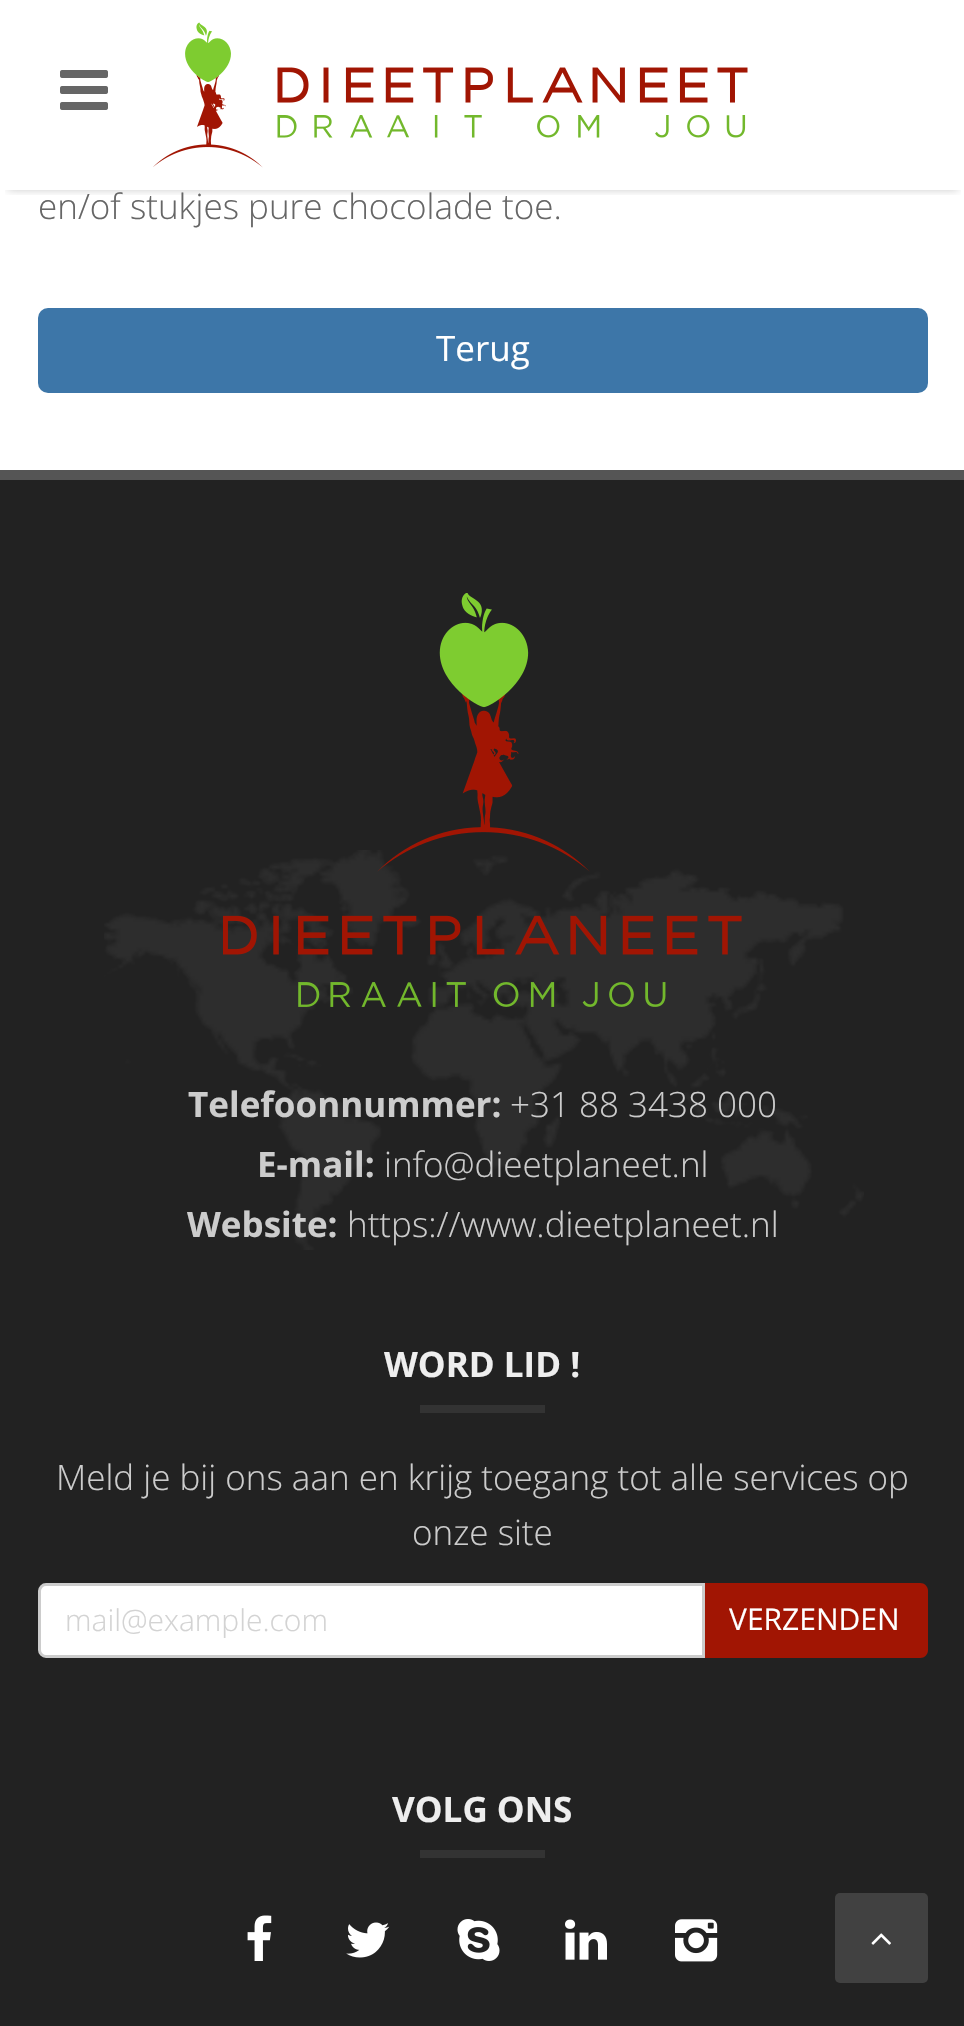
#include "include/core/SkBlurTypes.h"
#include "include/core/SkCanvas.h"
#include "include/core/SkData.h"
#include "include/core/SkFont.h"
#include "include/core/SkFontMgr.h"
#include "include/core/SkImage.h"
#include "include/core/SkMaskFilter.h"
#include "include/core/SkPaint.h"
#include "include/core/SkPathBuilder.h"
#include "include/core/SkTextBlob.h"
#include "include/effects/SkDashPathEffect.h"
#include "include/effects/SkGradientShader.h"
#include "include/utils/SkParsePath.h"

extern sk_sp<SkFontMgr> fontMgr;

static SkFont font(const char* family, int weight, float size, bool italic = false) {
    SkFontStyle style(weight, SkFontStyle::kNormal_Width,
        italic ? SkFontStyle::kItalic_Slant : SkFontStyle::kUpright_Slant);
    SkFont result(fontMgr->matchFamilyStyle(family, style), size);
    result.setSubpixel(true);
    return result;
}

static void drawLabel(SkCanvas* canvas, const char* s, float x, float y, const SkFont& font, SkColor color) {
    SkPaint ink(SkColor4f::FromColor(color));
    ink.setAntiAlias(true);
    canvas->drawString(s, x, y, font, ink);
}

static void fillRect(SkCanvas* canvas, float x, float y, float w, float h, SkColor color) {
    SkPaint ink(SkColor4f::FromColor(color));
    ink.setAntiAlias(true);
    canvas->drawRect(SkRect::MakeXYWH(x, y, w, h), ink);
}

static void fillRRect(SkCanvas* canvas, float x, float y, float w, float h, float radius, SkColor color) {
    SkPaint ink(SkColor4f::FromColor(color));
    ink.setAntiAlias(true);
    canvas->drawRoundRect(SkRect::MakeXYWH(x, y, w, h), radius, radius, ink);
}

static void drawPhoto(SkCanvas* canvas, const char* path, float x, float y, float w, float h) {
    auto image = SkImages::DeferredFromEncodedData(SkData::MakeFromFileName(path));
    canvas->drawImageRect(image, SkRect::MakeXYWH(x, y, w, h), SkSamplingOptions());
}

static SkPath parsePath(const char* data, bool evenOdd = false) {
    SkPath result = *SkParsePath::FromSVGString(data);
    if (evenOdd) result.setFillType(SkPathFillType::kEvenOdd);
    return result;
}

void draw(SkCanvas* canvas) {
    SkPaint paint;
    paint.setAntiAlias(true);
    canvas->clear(0xFFFFFFFF);
    canvas->save();
    canvas->clipRect(SkRect::MakeXYWH(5, 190, 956, 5));
    paint.setColor(0x33000000);
    paint.setMaskFilter(SkMaskFilter::MakeBlur(kNormal_SkBlurStyle, 4));
    canvas->drawRect(SkRect::MakeXYWH(8, 15, 950, 175), paint);
    paint.setMaskFilter(nullptr);
    canvas->restore();
    drawPhoto(canvas, "assets/img1.png", 60, 70, 48, 40);
    drawPhoto(canvas, "assets/img2.png", 153, 22, 595, 146);
    SkFont font1 = font("Open Sans", 300, 35);
    drawLabel(canvas, "en/of stukjes pure chocolade toe.", 38, 219, font1, 0xFF666666);
    fillRRect(canvas, 38, 308, 890, 85, 10, 0xFF3D76A8);
    SkFont font2 = font("Open Sans", 400, 35);
    drawLabel(canvas, "Terug", 436, 361, font2, 0xFFFFFFFF);
    fillRect(canvas, 0, 480, 964, 1546, 0xFF222222);
    fillRect(canvas, 0, 470, 964, 10, 0xFF555555);
    SkFont font3 = font("Open Sans", 700, 35);
    drawLabel(canvas, "Telefoonnummer:", 188, 1117, font3, 0xFFCCCCCC);
    drawLabel(canvas, "+31 88 3438 000", 510, 1117, font1, 0xFFCCCCCC);
    drawLabel(canvas, "E-mail:", 257, 1177, font3, 0xFFCCCCCC);
    drawLabel(canvas, "info@dieetplaneet.nl", 384, 1177, font1, 0xFFCCCCCC);
    drawLabel(canvas, "Website:", 187, 1237, font3, 0xFFCCCCCC);
    drawLabel(canvas, "https://www.dieetplaneet.nl", 347, 1237, font1, 0xFFCCCCCC);
    drawPhoto(canvas, "assets/img3.png", 104, 850, 760, 400);
    drawPhoto(canvas, "assets/img4.png", 223, 593, 519, 414);
    drawLabel(canvas, "WORD LID !", 384, 1377, font3, 0xFFEEEEEE);
    fillRect(canvas, 420, 1405, 125, 8, 0xFF333333);
    drawLabel(canvas, "Meld je bij ons aan en krijg toegang tot alle services op", 56, 1490, font1, 0xFFCCCCCC);
    drawLabel(canvas, "onze site", 412, 1545, font1, 0xFFCCCCCC);
    paint.setColor(0xFFA11503);
    canvas->drawPath(parsePath("M703 1583H920C924.5 1583 928 1586.5 928 1591V1650C928 1654.5 924.5 1658 920 1658H703Z"), paint);
    paint.setColor(0xFFFFFFFF);
    canvas->drawPath(parsePath("M46 1584.5H703.5V1656.5H46C42.5 1656.5 39.5 1653.5 39.5 1650V1591C39.5 1587.5 42.5 1584.5 46 1584.5Z"), paint);
    paint.setStroke(true);
    paint.setStrokeWidth(3);
    paint.setColor(0xFFCCCCCC);
    canvas->drawPath(parsePath("M46 1584.5H703.5V1656.5H46C42.5 1656.5 39.5 1653.5 39.5 1650V1591C39.5 1587.5 42.5 1584.5 46 1584.5Z"), paint);
    SkFont font4 = font("Open Sans", 300, 30);
    drawLabel(canvas, "mail@example.com", 65, 1631, font4, 0xFFD3D3D3);
    SkFont font5 = font("Open Sans", 400, 30);
    drawLabel(canvas, "VERZENDEN", 729, 1630, font5, 0xFFFFFFFF);
    drawLabel(canvas, "VOLG ONS", 392, 1822, font3, 0xFFEEEEEE);
    fillRect(canvas, 420, 1850, 125, 8, 0xFF333333);
    drawPhoto(canvas, "assets/img5.png", 247, 1915, 25, 46);
    drawPhoto(canvas, "assets/img6.png", 346, 1922, 44, 36);
    drawPhoto(canvas, "assets/img7.png", 457, 1919, 43, 42);
    drawPhoto(canvas, "assets/img8.png", 565, 1919, 42, 41);
    drawPhoto(canvas, "assets/img9.png", 675, 1919, 43, 43);
    fillRRect(canvas, 835, 1893, 93, 90, 5, 0xFF414141);
    drawPhoto(canvas, "assets/img10.png", 871, 1933, 20, 12);
}
